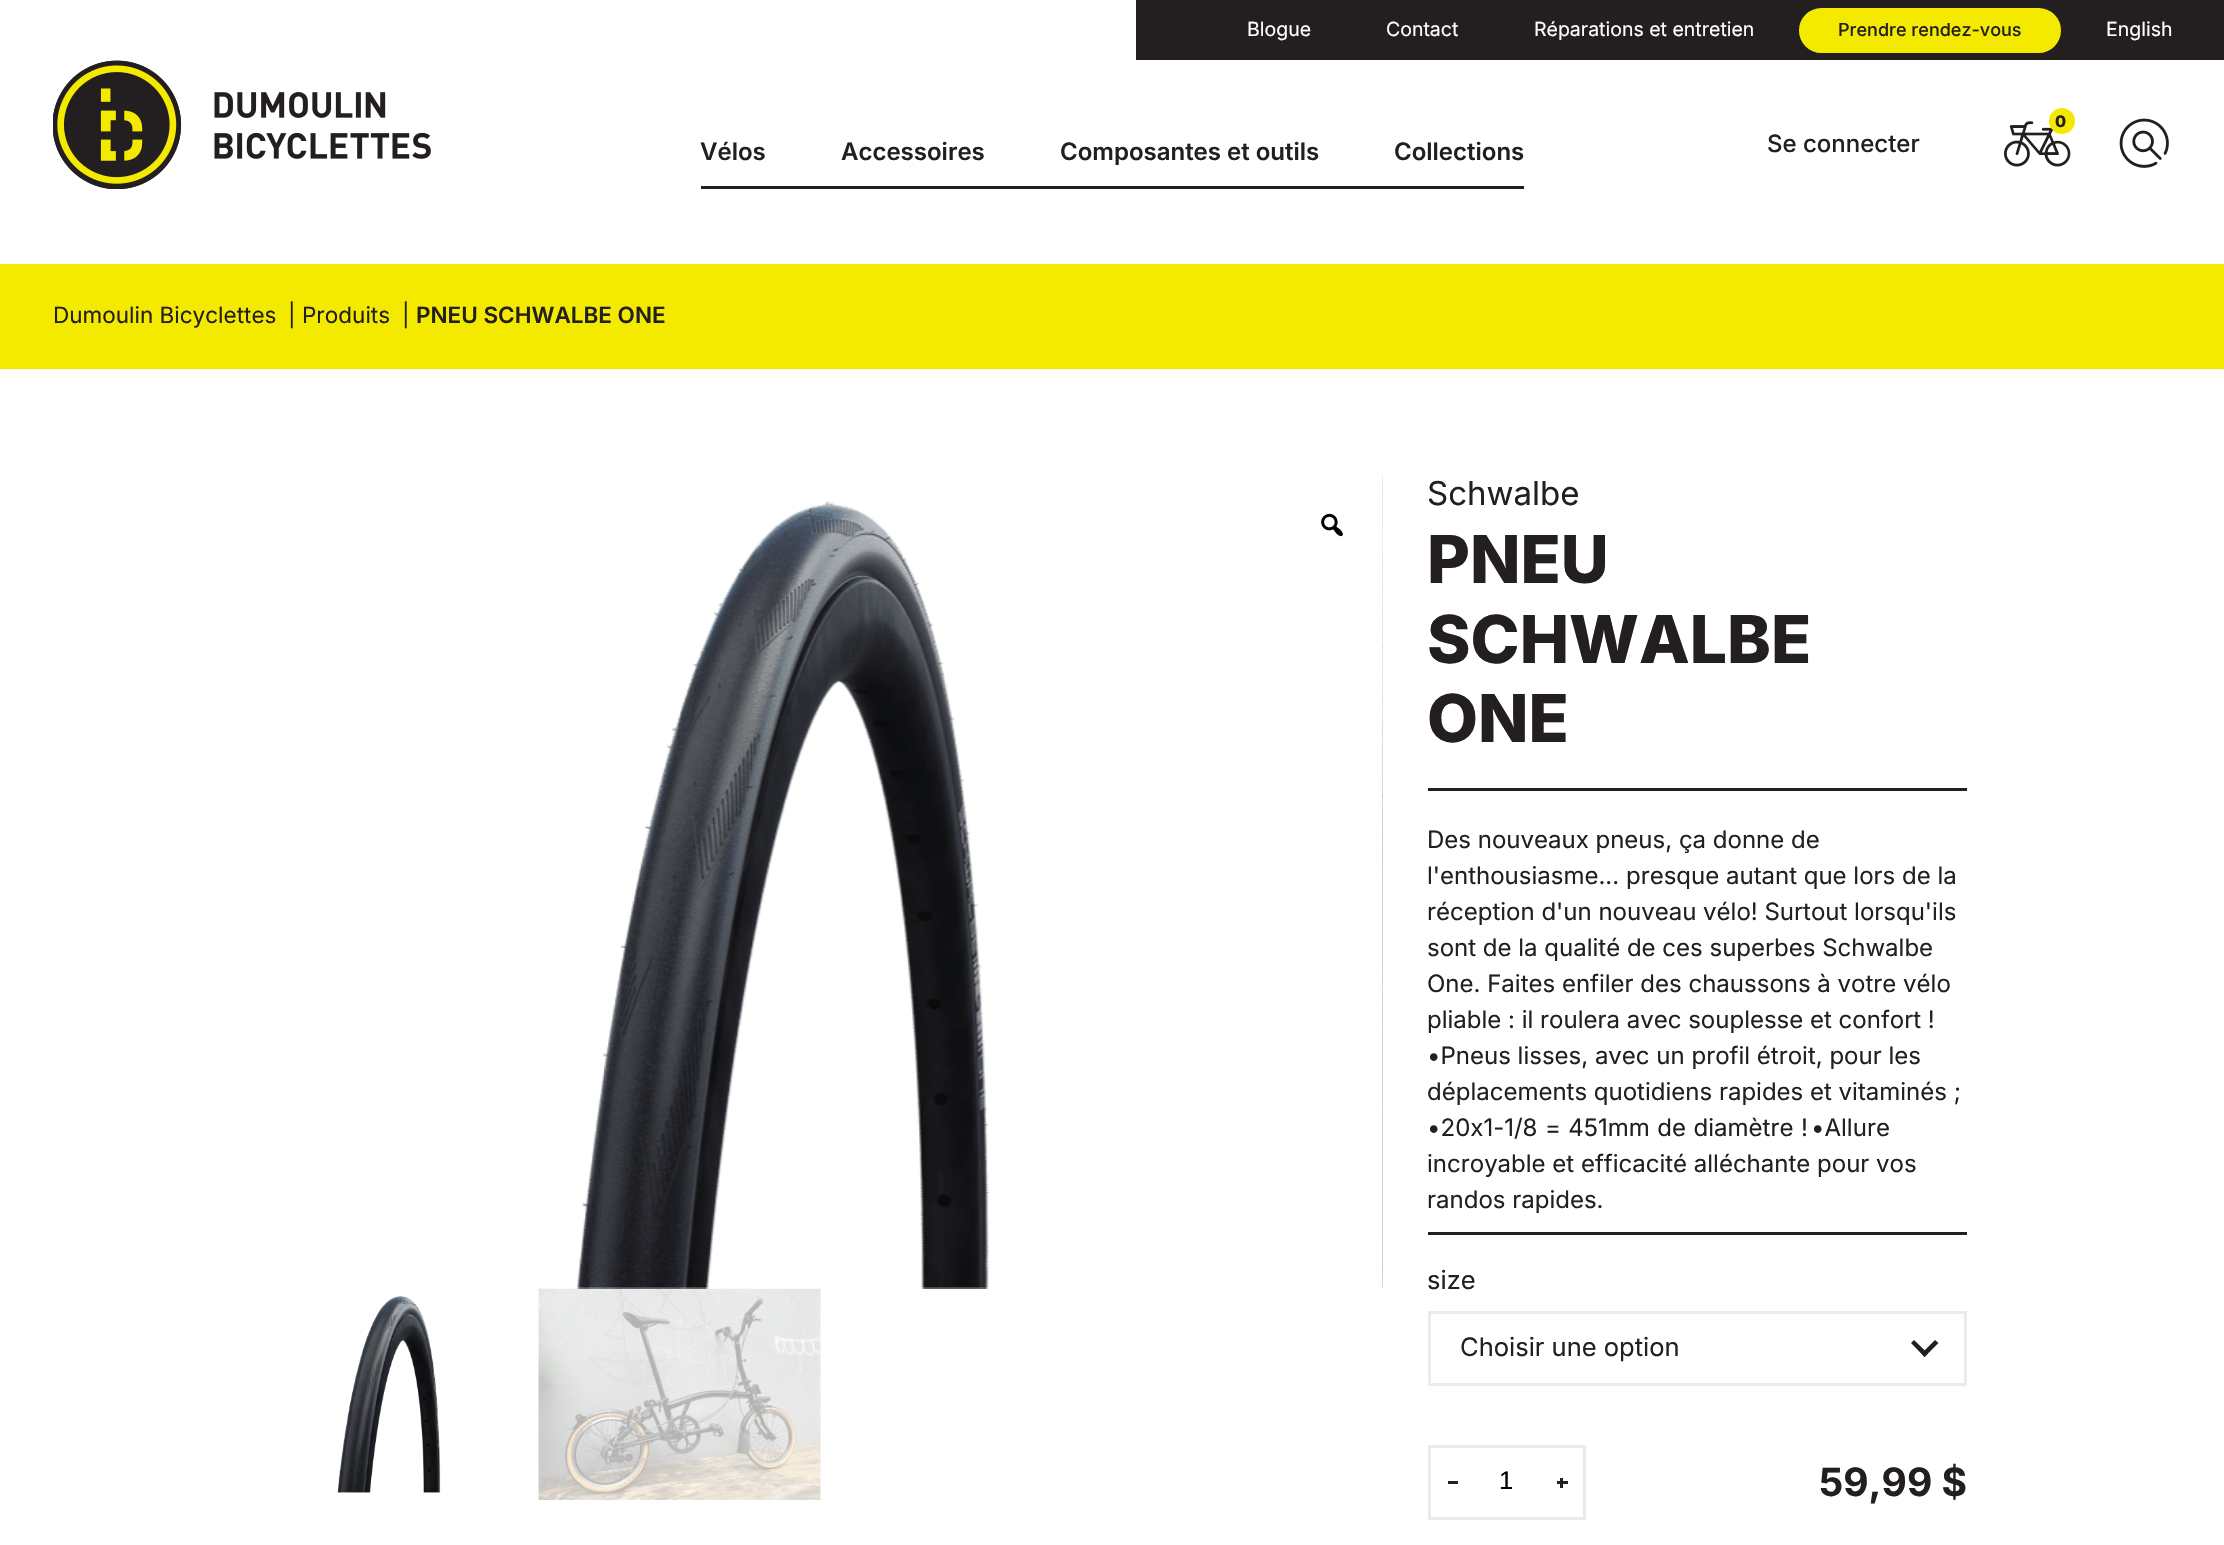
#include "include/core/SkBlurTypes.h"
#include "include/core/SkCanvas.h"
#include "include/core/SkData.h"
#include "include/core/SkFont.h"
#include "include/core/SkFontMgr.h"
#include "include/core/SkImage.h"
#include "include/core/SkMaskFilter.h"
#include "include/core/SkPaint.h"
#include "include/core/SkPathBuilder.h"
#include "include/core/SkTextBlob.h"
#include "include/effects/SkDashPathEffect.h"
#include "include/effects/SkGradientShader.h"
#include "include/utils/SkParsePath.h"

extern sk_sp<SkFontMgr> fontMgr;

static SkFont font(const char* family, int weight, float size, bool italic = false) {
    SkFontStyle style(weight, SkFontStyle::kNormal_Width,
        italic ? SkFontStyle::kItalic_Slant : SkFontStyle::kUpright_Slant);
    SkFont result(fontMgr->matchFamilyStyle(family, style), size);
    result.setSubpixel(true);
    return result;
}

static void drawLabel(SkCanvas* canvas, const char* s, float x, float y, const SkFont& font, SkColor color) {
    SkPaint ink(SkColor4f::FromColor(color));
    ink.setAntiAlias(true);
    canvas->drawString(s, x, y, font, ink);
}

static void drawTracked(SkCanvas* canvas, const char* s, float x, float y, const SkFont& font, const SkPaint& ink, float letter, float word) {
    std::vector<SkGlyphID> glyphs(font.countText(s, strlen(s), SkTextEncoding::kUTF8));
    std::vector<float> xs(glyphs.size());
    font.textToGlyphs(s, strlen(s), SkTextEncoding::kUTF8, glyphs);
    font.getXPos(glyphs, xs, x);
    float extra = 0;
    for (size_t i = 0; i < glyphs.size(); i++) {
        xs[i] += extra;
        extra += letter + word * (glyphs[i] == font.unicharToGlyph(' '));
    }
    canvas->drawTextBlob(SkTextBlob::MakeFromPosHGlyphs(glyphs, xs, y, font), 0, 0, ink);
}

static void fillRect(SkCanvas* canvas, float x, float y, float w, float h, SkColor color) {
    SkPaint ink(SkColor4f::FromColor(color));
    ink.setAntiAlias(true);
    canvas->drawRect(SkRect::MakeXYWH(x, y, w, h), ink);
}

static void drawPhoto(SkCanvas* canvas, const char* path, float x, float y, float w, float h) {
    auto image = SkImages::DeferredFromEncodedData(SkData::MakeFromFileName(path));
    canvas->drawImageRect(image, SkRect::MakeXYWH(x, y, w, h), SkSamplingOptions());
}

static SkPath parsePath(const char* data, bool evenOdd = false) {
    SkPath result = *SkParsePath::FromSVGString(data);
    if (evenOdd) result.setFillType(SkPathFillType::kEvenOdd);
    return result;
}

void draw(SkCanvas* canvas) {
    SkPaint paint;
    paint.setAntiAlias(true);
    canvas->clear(0xFFFFFFFF);
    fillRect(canvas, 1136, 0, 1088, 60, 0xFF231F20);
    SkFont font1 = font("Inter", 400, 19.5f);
    drawLabel(canvas, "Blogue", 1247, 36, font1, 0xFFFFFFFF);
    drawLabel(canvas, "Contact", 1386, 36, font1, 0xFFFFFFFF);
    drawLabel(canvas, "Réparations et entretien", 1534, 36, font1, 0xFFFFFFFF);
    paint.setColor(0xFFF3EA00);
    canvas->drawRoundRect(SkRect::MakeXYWH(1800.5f, 9.5f, 259, 42), 21, 21, paint);
    paint.setStroke(true);
    paint.setStrokeWidth(3);
    canvas->drawRoundRect(SkRect::MakeXYWH(1800.5f, 9.5f, 259, 42), 21, 21, paint);
    SkFont font2 = font("Inter", 500, 18);
    drawLabel(canvas, "Prendre rendez-vous", 1838, 36, font2, 0xFF231F20);
    drawLabel(canvas, "English", 2106, 36, font1, 0xFFFFFFFF);
    drawPhoto(canvas, "assets/img1.png", 53, 60, 378, 129);
    drawPhoto(canvas, "assets/img2.png", 53, 60, 129, 129);
    fillRect(canvas, 701, 186, 823, 3, 0xFF231F20);
    SkFont font3 = font("Inter", 600, 24);
    drawLabel(canvas, "Vélos", 700, 160, font3, 0xFF231F20);
    drawLabel(canvas, "Accessoires", 841, 160, font3, 0xFF231F20);
    drawLabel(canvas, "Composantes et outils", 1060, 160, font3, 0xFF231F20);
    drawLabel(canvas, "Collections", 1394, 160, font3, 0xFF231F20);
    SkFont font4 = font("Inter", 500, 24);
    drawLabel(canvas, "Se connecter", 1767, 152, font4, 0xFF231F20);
    drawPhoto(canvas, "assets/img3.png", 2004, 121, 67, 46);
    paint.setStroke(false);
    canvas->drawCircle(2062, 121, 13, paint);
    SkFont font5 = font("Inter", 800, 16);
    drawLabel(canvas, "0", 2055, 127, font5, 0xFF231F20);
    drawPhoto(canvas, "assets/img4.png", 2119, 118, 50, 50);
    fillRect(canvas, 0, 264, 2224, 105, 0xFFF3EA00);
    SkFont font6 = font("Inter", 400, 22.5f);
    drawLabel(canvas, "Dumoulin Bicyclettes", 53, 323, font6, 0xFF231F20);
    drawLabel(canvas, "|", 288, 323, font6, 0xFF231F20);
    drawLabel(canvas, "Produits", 302, 323, font6, 0xFF231F20);
    drawLabel(canvas, "|", 402, 323, font6, 0xFF231F20);
    SkFont font7 = font("Inter", 600, 22.5f);
    drawLabel(canvas, "PNEU SCHWALBE ONE", 416, 323, font7, 0xFF231F20);
    drawPhoto(canvas, "assets/img5.png", 576, 501, 414, 788);
    drawPhoto(canvas, "assets/img6.png", 1382, 474, 1, 814);
    drawPhoto(canvas, "assets/img7.png", 1321, 513, 22, 24);
    drawPhoto(canvas, "assets/img8.png", 337, 1295, 104, 198);
    drawPhoto(canvas, "assets/img9.png", 538, 1288, 283, 212);
    SkFont font8 = font("Inter", 400, 33);
    drawLabel(canvas, "Schwalbe", 1427, 505, font8, 0xFF231F20);
    SkFont font9 = font("Inter", 800, 66);
    drawLabel(canvas, "PNEU", 1427, 583, font9, 0xFF231F20);
    drawLabel(canvas, "SCHWALBE", 1427, 663, font9, 0xFF231F20);
    drawLabel(canvas, "ONE", 1427, 742, font9, 0xFF231F20);
    fillRect(canvas, 1428, 788, 539, 3, 0xFF231F20);
    fillRect(canvas, 1428, 1232, 539, 3, 0xFF231F20);
    SkFont font10 = font("Inter", 400, 24);
    drawLabel(canvas, "Des nouveaux pneus, ça donne de", 1427, 848, font10, 0xFF231F20);
    drawLabel(canvas, "l'enthousiasme... presque autant que lors de la", 1427, 884, font10, 0xFF231F20);
    drawLabel(canvas, "réception d'un nouveau vélo! Surtout lorsqu'ils", 1427, 920, font10, 0xFF231F20);
    drawLabel(canvas, "sont de la qualité de ces superbes Schwalbe", 1427, 956, font10, 0xFF231F20);
    drawLabel(canvas, "One. Faites enfiler des chaussons à votre vélo", 1427, 992, font10, 0xFF231F20);
    drawLabel(canvas, "pliable : il roulera avec souplesse et confort !", 1427, 1028, font10, 0xFF231F20);
    drawLabel(canvas, "•Pneus lisses, avec un profil étroit, pour les", 1427, 1064, font10, 0xFF231F20);
    drawLabel(canvas, "déplacements quotidiens rapides et vitaminés ;", 1427, 1100, font10, 0xFF231F20);
    paint.setColor(0xFF231F20);
    drawTracked(canvas, "•20x1-1/8 = 451mm de diamètre !", 1427, 1136, font10, paint, 0, 0.75f);
    drawLabel(canvas, "•Allure", 1811, 1136, font10, 0xFF231F20);
    drawLabel(canvas, "incroyable et efficacité alléchante pour vos", 1427, 1172, font10, 0xFF231F20);
    drawLabel(canvas, "randos rapides.", 1427, 1208, font10, 0xFF231F20);
    SkFont font11 = font("Inter", 400, 25.5f);
    drawLabel(canvas, "size", 1427, 1289, font11, 0xFF231F20);
    paint.setStroke(true);
    paint.setColor(0xFFEBEBEC);
    canvas->drawRect(SkRect::MakeXYWH(1429.5f, 1312.5f, 536, 72), paint);
    drawLabel(canvas, "Choisir une option", 1460, 1356, font11, 0xFF231F20);
    paint.setStroke(false);
    paint.setColor(0xFF231F20);
    canvas->drawPath(parsePath("M1935 1340L1938.5 1343L1924.5 1357L1921.5 1353.5Z"), paint);
    canvas->drawPath(parsePath("M1914 1340L1928 1353.5L1924.5 1357L1911 1343Z"), paint);
    paint.setStroke(true);
    paint.setColor(0xFFEBEBEC);
    canvas->drawRect(SkRect::MakeXYWH(1429.5f, 1446.5f, 155, 72), paint);
    fillRect(canvas, 1448, 1481, 10, 3, 0xFF231F20);
    SkFont font12 = font("Liberation Sans", 400, 25.5f);
    drawLabel(canvas, "1", 1499, 1489, font12, 0xFF000000);
    fillRect(canvas, 1557, 1481, 11, 3, 0xFF231F20);
    fillRect(canvas, 1560, 1478, 3, 10, 0xFF231F20);
    SkFont font13 = font("Inter", 700, 39);
    drawLabel(canvas, "59,99 $", 1819, 1496, font13, 0xFF231F20);
}
